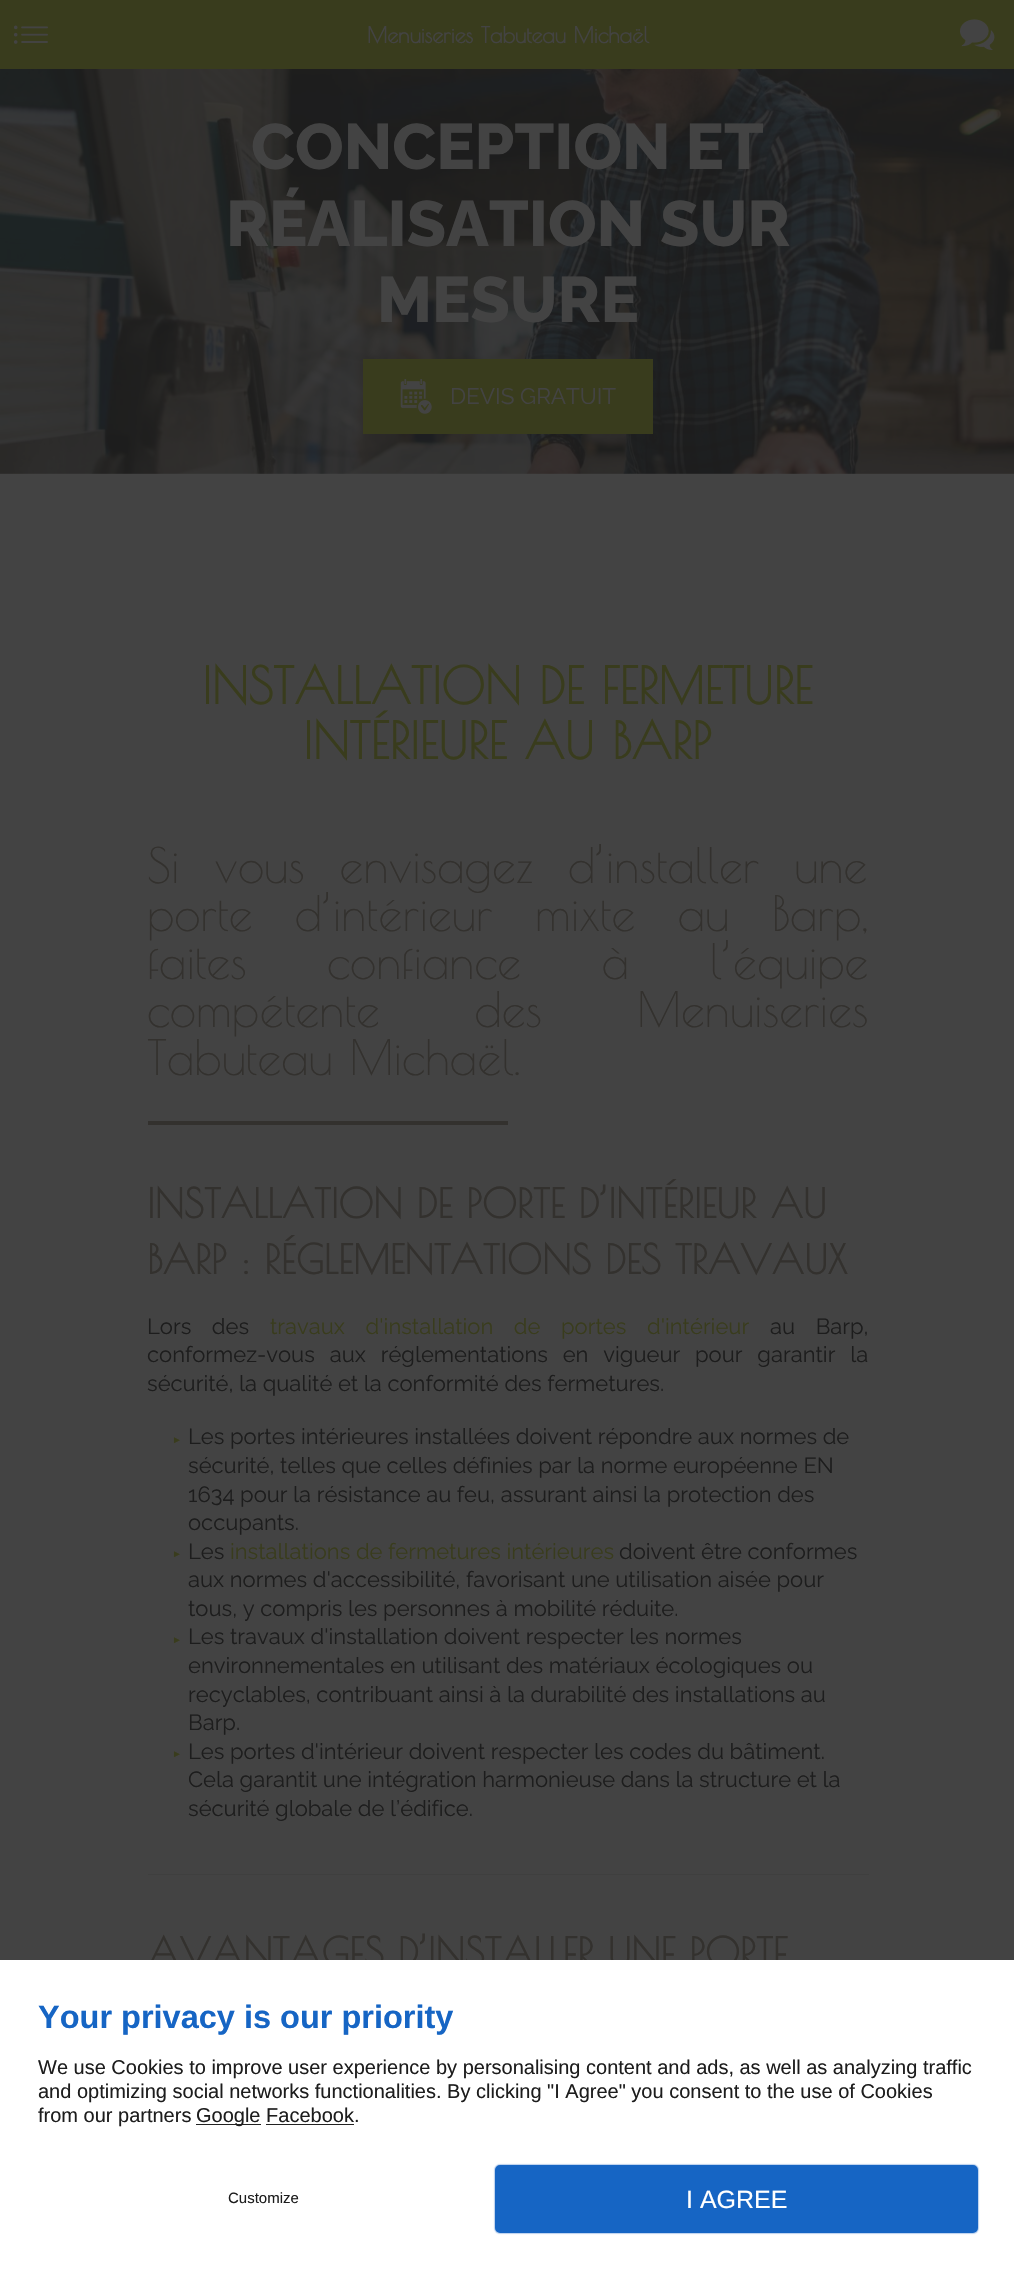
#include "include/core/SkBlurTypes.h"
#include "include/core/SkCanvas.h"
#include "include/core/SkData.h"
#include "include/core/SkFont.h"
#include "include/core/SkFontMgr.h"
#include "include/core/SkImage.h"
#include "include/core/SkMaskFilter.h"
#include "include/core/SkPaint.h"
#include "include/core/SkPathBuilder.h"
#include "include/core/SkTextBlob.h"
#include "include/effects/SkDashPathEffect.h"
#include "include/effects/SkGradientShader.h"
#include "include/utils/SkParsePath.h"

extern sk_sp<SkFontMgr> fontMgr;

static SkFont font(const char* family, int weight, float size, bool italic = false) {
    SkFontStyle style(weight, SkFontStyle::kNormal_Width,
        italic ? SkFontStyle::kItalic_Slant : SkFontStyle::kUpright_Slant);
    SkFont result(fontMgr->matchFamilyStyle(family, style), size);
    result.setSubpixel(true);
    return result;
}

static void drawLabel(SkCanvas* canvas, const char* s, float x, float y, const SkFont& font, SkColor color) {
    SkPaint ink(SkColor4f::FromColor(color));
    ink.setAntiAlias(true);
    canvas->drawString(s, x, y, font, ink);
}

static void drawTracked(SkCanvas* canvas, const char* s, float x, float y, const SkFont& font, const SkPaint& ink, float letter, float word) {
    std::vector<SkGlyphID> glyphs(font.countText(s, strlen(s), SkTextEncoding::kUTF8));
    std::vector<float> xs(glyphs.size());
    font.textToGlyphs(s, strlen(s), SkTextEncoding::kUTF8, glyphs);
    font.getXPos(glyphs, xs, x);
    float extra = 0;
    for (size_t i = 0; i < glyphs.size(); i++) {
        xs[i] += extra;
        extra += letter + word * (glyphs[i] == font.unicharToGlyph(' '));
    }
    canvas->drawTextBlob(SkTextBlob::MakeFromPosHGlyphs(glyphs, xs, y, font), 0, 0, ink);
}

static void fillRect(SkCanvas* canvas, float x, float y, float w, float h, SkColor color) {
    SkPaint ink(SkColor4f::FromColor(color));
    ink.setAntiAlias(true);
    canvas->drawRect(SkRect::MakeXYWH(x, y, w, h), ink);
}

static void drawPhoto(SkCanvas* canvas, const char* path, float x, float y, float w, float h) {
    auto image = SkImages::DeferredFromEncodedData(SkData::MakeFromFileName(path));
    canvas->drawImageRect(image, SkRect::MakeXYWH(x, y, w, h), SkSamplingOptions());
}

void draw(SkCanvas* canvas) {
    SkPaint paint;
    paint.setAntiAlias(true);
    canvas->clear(0xFF434343);
    fillRect(canvas, 0, 0, 1014, 69, 0xFF393C1D);
    drawPhoto(canvas, "assets/img1.png", 14, 25, 34, 19);
    SkFont font1 = font("Poiret One", 700, 22);
    drawLabel(canvas, "Menuiseries Tabuteau Michaël", 367, 43, font1, 0xFF434343);
    drawPhoto(canvas, "assets/img2.png", 960, 19, 35, 31);
    drawPhoto(canvas, "assets/img3.png", 0, 69, 1014, 405);
    SkFont font2 = font("Raleway", 100, 64);
    drawLabel(canvas, "CONCEPTION ET", 251, 169, font2, 0xFF434343);
    drawLabel(canvas, "RÉALISATION SUR", 226, 246, font2, 0xFF434343);
    drawLabel(canvas, "MESURE", 377, 322, font2, 0xFF434343);
    fillRect(canvas, 363, 359, 290, 75, 0xFF393C1D);
    drawPhoto(canvas, "assets/img4.png", 400, 379, 32, 35);
    SkFont font3 = font("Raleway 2", 100, 22.5f);
    drawLabel(canvas, "DEVIS GRATUIT", 450, 404, font3, 0xFF434343);
    SkFont font4 = font("Poiret One", 700, 50);
    drawLabel(canvas, "INSTALLATION DE FERMETURE", 202, 704, font4, 0xFF393C1D);
    drawLabel(canvas, "INTÉRIEURE AU BARP", 303, 759, font4, 0xFF393C1D);
    SkFont font5 = font("Poiret One", 400, 48);
    paint.setColor(0xFF33312E);
    drawTracked(canvas, "Si vous envisagez d’installer une", 147, 883, font5, paint, 0, 18);
    drawTracked(canvas, "porte d’intérieur mixte au Barp,", 147, 931, font5, paint, 0, 25.5f);
    drawTracked(canvas, "faites confiance à l’équipe", 147, 979, font5, paint, 0, 63.5f);
    drawTracked(canvas, "compétente des Menuiseries", 147, 1027, font5, paint, 0, 78);
    drawLabel(canvas, "Tabuteau Michaël.", 147, 1075, font5, 0xFF33312E);
    fillRect(canvas, 148, 1121, 360, 4, 0xFF33312E);
    SkFont font6 = font("Poiret One", 700, 40);
    drawLabel(canvas, "INSTALLATION DE PORTE D’INTÉRIEUR AU", 147, 1218, font6, 0xFF33312E);
    drawLabel(canvas, "BARP : RÉGLEMENTATIONS DES TRAVAUX", 147, 1274, font6, 0xFF33312E);
    SkFont font7 = font("Raleway 2", 100, 22);
    paint.setColor(0xFF1D1D1D);
    drawTracked(canvas, "Lors des", 147, 1334, font7, paint, 0, 15);
    paint.setColor(0xFF393C1D);
    drawTracked(canvas, "travaux d'installation de portes d'intérieur", 270, 1334, font7, paint, 0, 15);
    paint.setColor(0xFF1D1D1D);
    drawTracked(canvas, "au Barp,", 770, 1334, font7, paint, 0, 15);
    drawTracked(canvas, "conformez-vous aux réglementations en vigueur pour garantir la", 147, 1362, font7, paint, 0, 9.25f);
    drawLabel(canvas, "sécurité, la qualité et la conformité des fermetures.", 147, 1391, font7, 0xFF1D1D1D);
    SkFont font8 = font("Liberation Sans", 700, 10);
    drawLabel(canvas, "►", 172, 1443, font8, 0xFF393C1D);
    drawLabel(canvas, "Les portes intérieures installées doivent répondre aux normes de", 188, 1444, font7, 0xFF1D1D1D);
    drawLabel(canvas, "sécurité, telles que celles définies par la norme européenne EN", 188, 1473, font7, 0xFF1D1D1D);
    drawLabel(canvas, "1634 pour la résistance au feu, assurant ainsi la protection des", 188, 1502, font7, 0xFF1D1D1D);
    drawLabel(canvas, "occupants.", 188, 1530, font7, 0xFF1D1D1D);
    drawLabel(canvas, "►", 172, 1557, font8, 0xFF393C1D);
    drawLabel(canvas, "Les", 188, 1559, font7, 0xFF1D1D1D);
    drawLabel(canvas, "installations de fermetures intérieures", 230, 1559, font7, 0xFF393C1D);
    drawLabel(canvas, "doivent être conformes", 619, 1559, font7, 0xFF1D1D1D);
    drawLabel(canvas, "aux normes d'accessibilité, favorisant une utilisation aisée pour", 188, 1587, font7, 0xFF1D1D1D);
    drawLabel(canvas, "tous, y compris les personnes à mobilité réduite.", 188, 1616, font7, 0xFF1D1D1D);
    drawLabel(canvas, "►", 172, 1643, font8, 0xFF393C1D);
    drawLabel(canvas, "Les travaux d'installation doivent respecter les normes", 188, 1644, font7, 0xFF1D1D1D);
    drawLabel(canvas, "environnementales en utilisant des matériaux écologiques ou", 188, 1673, font7, 0xFF1D1D1D);
    drawLabel(canvas, "recyclables, contribuant ainsi à la durabilité des installations au", 188, 1702, font7, 0xFF1D1D1D);
    drawLabel(canvas, "Barp.", 188, 1730, font7, 0xFF1D1D1D);
    drawLabel(canvas, "►", 172, 1757, font8, 0xFF393C1D);
    drawLabel(canvas, "Les portes d'intérieur doivent respecter les codes du bâtiment.", 188, 1759, font7, 0xFF1D1D1D);
    drawLabel(canvas, "Cela garantit une intégration harmonieuse dans la structure et la", 188, 1787, font7, 0xFF1D1D1D);
    drawLabel(canvas, "sécurité globale de l’édifice.", 188, 1816, font7, 0xFF1D1D1D);
    fillRect(canvas, 148, 1874, 721, 1, 0xFF3F3F3F);
    drawLabel(canvas, "AVANTAGES D’INSTALLER UNE PORTE", 147, 1967, font6, 0xFF33312E);
    fillRect(canvas, 0, 1960, 1014, 309, 0xFFFFFFFF);
    SkFont font9 = font("Liberation Sans", 700, 32.5f);
    drawLabel(canvas, "Your privacy is our priority", 38, 2028, font9, 0xFF1665C4);
    SkFont font10 = font("Liberation Sans", 400, 20);
    drawLabel(canvas, "We use Cookies to improve user experience by personalising content and ads, as well as analyzing traffic", 38, 2074, font10, 0xFF1D1D1D);
    drawLabel(canvas, "and optimizing social networks functionalities. By clicking \"I Agree\" you consent to the use of Cookies", 38, 2098, font10, 0xFF1D1D1D);
    drawLabel(canvas, "from our partners", 38, 2122, font10, 0xFF1D1D1D);
    fillRect(canvas, 196, 2124, 65, 1, 0xFF222222);
    drawLabel(canvas, "Google Facebook.", 196, 2122, font10, 0xFF1D1D1D);
    fillRect(canvas, 266, 2124, 88, 1, 0xFF222222);
    SkFont font11 = font("Liberation Sans", 400, 15);
    drawLabel(canvas, "Customize", 228, 2203, font11, 0xFF1D1D1D);
    paint.setColor(0x4D1665C4);
    paint.setMaskFilter(SkMaskFilter::MakeBlur(kNormal_SkBlurStyle, 0.5f));
    canvas->drawRoundRect(SkRect::MakeXYWH(494, 2164, 485, 70), 6, 6, paint);
    paint.setMaskFilter(nullptr);
    paint.setColor(0xFF1665C4);
    canvas->drawRoundRect(SkRect::MakeXYWH(496.5f, 2166.5f, 480, 65), 3.5f, 3.5f, paint);
    paint.setStroke(true);
    paint.setStrokeWidth(3);
    canvas->drawRoundRect(SkRect::MakeXYWH(496.5f, 2166.5f, 480, 65), 3.5f, 3.5f, paint);
    SkFont font12 = font("Liberation Sans", 400, 25);
    drawLabel(canvas, "I AGREE", 686, 2208, font12, 0xFFFFFFFF);
}
